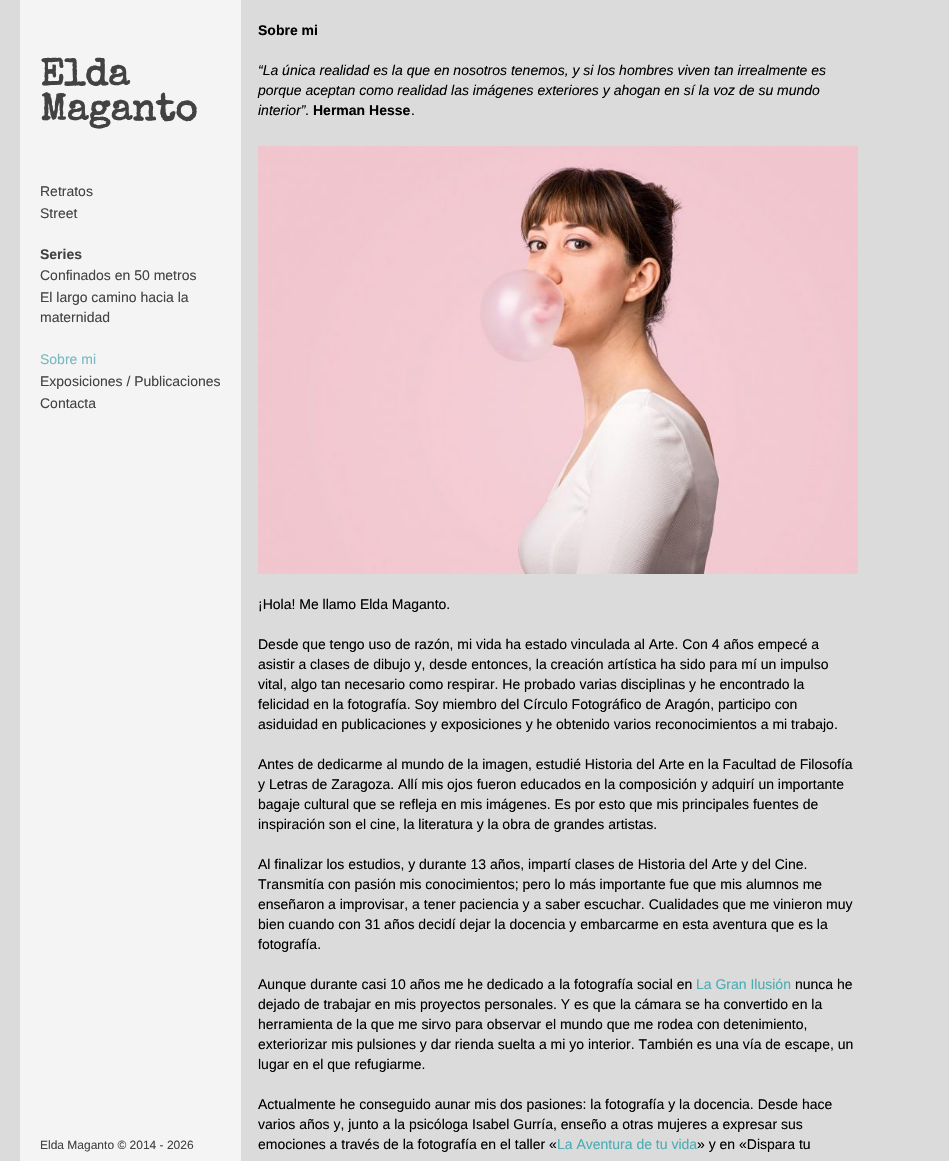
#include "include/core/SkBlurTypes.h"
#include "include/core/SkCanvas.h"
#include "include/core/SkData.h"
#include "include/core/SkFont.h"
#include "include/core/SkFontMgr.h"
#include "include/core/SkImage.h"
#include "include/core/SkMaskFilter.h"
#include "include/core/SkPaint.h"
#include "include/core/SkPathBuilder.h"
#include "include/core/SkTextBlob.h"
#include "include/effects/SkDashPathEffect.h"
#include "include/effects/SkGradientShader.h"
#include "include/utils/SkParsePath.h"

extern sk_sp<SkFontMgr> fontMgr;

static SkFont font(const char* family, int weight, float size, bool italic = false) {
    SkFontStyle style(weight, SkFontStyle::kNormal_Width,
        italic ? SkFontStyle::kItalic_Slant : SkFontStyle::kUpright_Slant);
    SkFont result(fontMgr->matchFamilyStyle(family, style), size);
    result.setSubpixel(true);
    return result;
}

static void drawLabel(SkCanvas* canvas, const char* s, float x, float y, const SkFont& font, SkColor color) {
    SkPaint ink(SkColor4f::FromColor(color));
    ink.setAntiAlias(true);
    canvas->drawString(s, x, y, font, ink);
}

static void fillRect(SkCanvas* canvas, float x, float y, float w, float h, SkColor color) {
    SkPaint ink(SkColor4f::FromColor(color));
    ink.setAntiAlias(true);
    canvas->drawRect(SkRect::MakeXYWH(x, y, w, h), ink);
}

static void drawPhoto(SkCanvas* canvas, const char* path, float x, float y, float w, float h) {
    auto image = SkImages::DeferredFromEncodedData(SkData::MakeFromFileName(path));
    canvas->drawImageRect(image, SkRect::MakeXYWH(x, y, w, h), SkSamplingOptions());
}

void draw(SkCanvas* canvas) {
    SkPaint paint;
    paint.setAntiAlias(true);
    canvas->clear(0xFFDBDBDB);
    fillRect(canvas, 20, 0, 221, 1161, 0xFFF4F4F4);
    SkFont font1 = font("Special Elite", 700, 38);
    drawLabel(canvas, "Elda", 40, 85, font1, 0xFF424242);
    drawLabel(canvas, "Maganto", 40, 120, font1, 0xFF424242);
    SkFont font2 = font("Liberation Sans", 400, 14);
    drawLabel(canvas, "Retratos", 40, 196, font2, 0xFF424242);
    drawLabel(canvas, "Street", 40, 218, font2, 0xFF424242);
    SkFont font3 = font("Liberation Sans", 700, 14);
    drawLabel(canvas, "Series", 40, 259, font3, 0xFF424242);
    drawLabel(canvas, "Confinados en 50 metros", 40, 280, font2, 0xFF424242);
    drawLabel(canvas, "El largo camino hacia la", 40, 302, font2, 0xFF424242);
    drawLabel(canvas, "maternidad", 40, 322, font2, 0xFF424242);
    drawLabel(canvas, "Sobre mi", 40, 364, font2, 0xFF76BAC0);
    drawLabel(canvas, "Exposiciones / Publicaciones", 40, 386, font2, 0xFF424242);
    drawLabel(canvas, "Contacta", 40, 408, font2, 0xFF424242);
    SkFont font4 = font("Liberation Sans", 400, 12);
    drawLabel(canvas, "Elda Maganto © 2014 - 2026", 40, 1149, font4, 0xFF424242);
    drawLabel(canvas, "Sobre mi", 258, 35, font3, 0xFF000000);
    SkFont font5 = font("Liberation Sans", 400, 14, true);
    drawLabel(canvas, "“La única realidad es la que en nosotros tenemos, y si los hombres viven tan irrealmente es", 258, 75, font5, 0xFF000000);
    drawLabel(canvas, "porque aceptan como realidad las imágenes exteriores y ahogan en sí la voz de su mundo", 258, 95, font5, 0xFF000000);
    drawLabel(canvas, "interior”", 258, 115, font5, 0xFF000000);
    drawLabel(canvas, ".", 305, 115, font2, 0xFF000000);
    drawLabel(canvas, "Herman Hesse", 313, 115, font3, 0xFF000000);
    drawLabel(canvas, ".", 411, 115, font2, 0xFF000000);
    drawPhoto(canvas, "assets/img1.png", 258, 146, 600, 428);
    drawLabel(canvas, "¡Hola! Me llamo Elda Maganto.", 258, 609, font2, 0xFF000000);
    drawLabel(canvas, "Desde que tengo uso de razón, mi vida ha estado vinculada al Arte. Con 4 años empecé a", 258, 649, font2, 0xFF000000);
    drawLabel(canvas, "asistir a clases de dibujo y, desde entonces, la creación artística ha sido para mí un impulso", 258, 669, font2, 0xFF000000);
    drawLabel(canvas, "vital, algo tan necesario como respirar. He probado varias disciplinas y he encontrado la", 258, 689, font2, 0xFF000000);
    drawLabel(canvas, "felicidad en la fotografía. Soy miembro del Círculo Fotográfico de Aragón, participo con", 258, 709, font2, 0xFF000000);
    drawLabel(canvas, "asiduidad en publicaciones y exposiciones y he obtenido varios reconocimientos a mi trabajo.", 258, 729, font2, 0xFF000000);
    drawLabel(canvas, "Antes de dedicarme al mundo de la imagen, estudié Historia del Arte en la Facultad de Filosofía", 258, 769, font2, 0xFF000000);
    drawLabel(canvas, "y Letras de Zaragoza. Allí mis ojos fueron educados en la composición y adquirí un importante", 258, 789, font2, 0xFF000000);
    drawLabel(canvas, "bagaje cultural que se refleja en mis imágenes. Es por esto que mis principales fuentes de", 258, 809, font2, 0xFF000000);
    drawLabel(canvas, "inspiración son el cine, la literatura y la obra de grandes artistas.", 258, 829, font2, 0xFF000000);
    drawLabel(canvas, "Al finalizar los estudios, y durante 13 años, impartí clases de Historia del Arte y del Cine.", 258, 869, font2, 0xFF000000);
    drawLabel(canvas, "Transmitía con pasión mis conocimientos; pero lo más importante fue que mis alumnos me", 258, 889, font2, 0xFF000000);
    drawLabel(canvas, "enseñaron a improvisar, a tener paciencia y a saber escuchar. Cualidades que me vinieron muy", 258, 909, font2, 0xFF000000);
    drawLabel(canvas, "bien cuando con 31 años decidí dejar la docencia y embarcarme en esta aventura que es la", 258, 929, font2, 0xFF000000);
    drawLabel(canvas, "fotografía.", 258, 949, font2, 0xFF000000);
    drawLabel(canvas, "Aunque durante casi 10 años me he dedicado a la fotografía social en", 258, 989, font2, 0xFF000000);
    drawLabel(canvas, "La Gran Ilusión", 696, 989, font2, 0xFF4BACB4);
    drawLabel(canvas, "nunca he", 795, 989, font2, 0xFF000000);
    drawLabel(canvas, "dejado de trabajar en mis proyectos personales. Y es que la cámara se ha convertido en la", 258, 1009, font2, 0xFF000000);
    drawLabel(canvas, "herramienta de la que me sirvo para observar el mundo que me rodea con detenimiento,", 258, 1029, font2, 0xFF000000);
    drawLabel(canvas, "exteriorizar mis pulsiones y dar rienda suelta a mi yo interior. También es una vía de escape, un", 258, 1049, font2, 0xFF000000);
    drawLabel(canvas, "lugar en el que refugiarme.", 258, 1069, font2, 0xFF000000);
    drawLabel(canvas, "Actualmente he conseguido aunar mis dos pasiones: la fotografía y la docencia. Desde hace", 258, 1109, font2, 0xFF000000);
    drawLabel(canvas, "varios años y, junto a la psicóloga Isabel Gurría, enseño a otras mujeres a expresar sus", 258, 1129, font2, 0xFF000000);
    drawLabel(canvas, "emociones a través de la fotografía en el taller «", 258, 1149, font2, 0xFF000000);
    drawLabel(canvas, "La Aventura de tu vida", 557, 1149, font2, 0xFF4BACB4);
    drawLabel(canvas, "» y en «Dispara tu", 697, 1149, font2, 0xFF000000);
}
